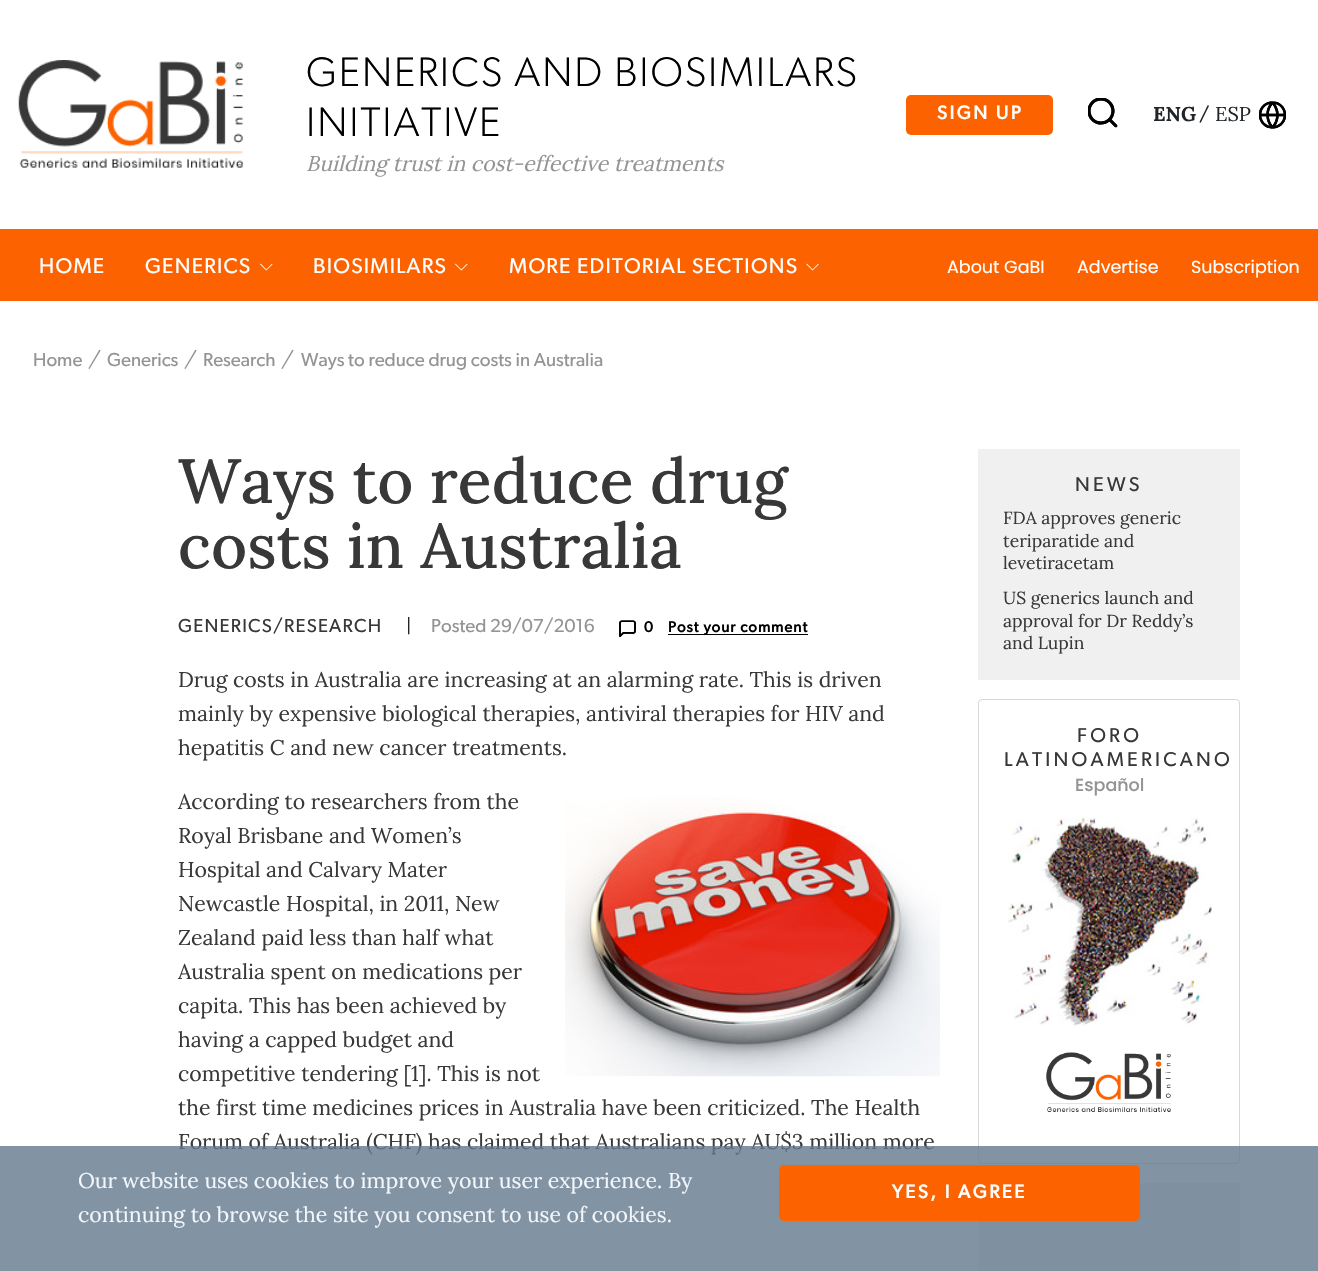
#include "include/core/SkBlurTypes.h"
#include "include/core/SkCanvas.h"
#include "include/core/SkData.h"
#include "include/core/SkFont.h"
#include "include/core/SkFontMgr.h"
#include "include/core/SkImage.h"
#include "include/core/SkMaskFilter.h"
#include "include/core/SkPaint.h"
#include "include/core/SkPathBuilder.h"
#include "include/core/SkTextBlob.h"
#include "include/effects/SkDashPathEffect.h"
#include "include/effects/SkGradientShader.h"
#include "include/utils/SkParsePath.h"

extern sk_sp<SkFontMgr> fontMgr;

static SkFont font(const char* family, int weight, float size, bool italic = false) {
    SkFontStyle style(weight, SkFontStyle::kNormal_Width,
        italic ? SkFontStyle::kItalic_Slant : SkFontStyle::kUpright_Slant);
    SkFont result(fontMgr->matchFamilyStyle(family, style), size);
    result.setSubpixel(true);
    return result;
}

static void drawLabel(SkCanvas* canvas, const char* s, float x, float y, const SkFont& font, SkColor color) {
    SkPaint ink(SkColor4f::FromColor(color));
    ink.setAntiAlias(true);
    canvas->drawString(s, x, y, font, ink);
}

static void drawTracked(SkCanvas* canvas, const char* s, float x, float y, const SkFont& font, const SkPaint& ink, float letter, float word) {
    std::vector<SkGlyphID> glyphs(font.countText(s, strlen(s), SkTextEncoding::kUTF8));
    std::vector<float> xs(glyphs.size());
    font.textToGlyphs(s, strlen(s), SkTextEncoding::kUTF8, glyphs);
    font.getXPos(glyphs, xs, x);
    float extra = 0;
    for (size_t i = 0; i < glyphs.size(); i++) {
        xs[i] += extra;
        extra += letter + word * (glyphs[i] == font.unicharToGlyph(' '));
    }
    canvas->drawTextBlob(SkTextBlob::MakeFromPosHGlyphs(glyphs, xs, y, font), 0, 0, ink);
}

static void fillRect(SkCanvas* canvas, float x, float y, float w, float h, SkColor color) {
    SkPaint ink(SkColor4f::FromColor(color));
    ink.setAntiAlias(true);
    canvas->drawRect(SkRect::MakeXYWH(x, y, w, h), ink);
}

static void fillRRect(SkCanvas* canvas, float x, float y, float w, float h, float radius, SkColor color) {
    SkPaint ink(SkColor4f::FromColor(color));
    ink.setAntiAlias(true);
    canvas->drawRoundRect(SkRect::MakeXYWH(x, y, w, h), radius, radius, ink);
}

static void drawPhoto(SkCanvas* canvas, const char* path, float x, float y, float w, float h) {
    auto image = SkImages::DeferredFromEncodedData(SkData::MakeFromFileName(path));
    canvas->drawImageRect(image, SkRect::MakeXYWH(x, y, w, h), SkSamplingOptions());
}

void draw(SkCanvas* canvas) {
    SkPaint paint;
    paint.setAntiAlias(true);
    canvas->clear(0xFFFFFFFF);
    drawPhoto(canvas, "assets/img1.png", 18, 60, 226, 108);
    SkFont font1 = font("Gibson", 300, 41.25f);
    paint.setColor(0xFF000000);
    drawTracked(canvas, "GENERICS AND BIOSIMILARS", 306, 86, font1, paint, 1.9f, 0);
    drawTracked(canvas, "INITIATIVE", 306, 136, font1, paint, 1.9f, 0);
    SkFont font2 = font("Lora", 400, 21.25f, true);
    drawLabel(canvas, "Building trust in cost-effective treatments", 306, 171, font2, 0xFF949494);
    fillRRect(canvas, 906, 95, 147, 40, 5, 0xFFFC6300);
    SkFont font3 = font("Gibson", 700, 18.75f);
    paint.setColor(0xFFFFFFFF);
    drawTracked(canvas, "SIGN UP", 937, 119, font3, paint, 2.5f, 0);
    drawPhoto(canvas, "assets/img2.png", 1088, 98, 30, 30);
    SkFont font4 = font("Lora", 700, 20);
    drawLabel(canvas, "ENG", 1153, 121, font4, 0xFF212529);
    SkFont font5 = font("Gibson", 400, 20);
    drawLabel(canvas, "/", 1199, 121, font5, 0xFF212529);
    SkFont font6 = font("Lora", 400, 20);
    drawLabel(canvas, "ESP", 1215, 121, font6, 0xFF212529);
    drawPhoto(canvas, "assets/img3.png", 1259, 101, 27, 28);
    fillRect(canvas, 0, 229, 1318, 72, 0xFFFC6300);
    SkFont font7 = font("Gibson", 400, 21.25f);
    drawTracked(canvas, "HOME", 39, 273, font7, paint, 1.25f, 0);
    drawTracked(canvas, "GENERICS", 145, 273, font7, paint, 1.25f, 0);
    drawPhoto(canvas, "assets/img4.png", 260, 263, 13, 8);
    drawTracked(canvas, "BIOSIMILARS", 313, 273, font7, paint, 1.25f, 0);
    drawPhoto(canvas, "assets/img4.png", 455, 263, 13, 8);
    drawTracked(canvas, "MORE EDITORIAL SECTIONS", 509, 273, font7, paint, 1.25f, 0);
    drawPhoto(canvas, "assets/img5.png", 806, 263, 13, 8);
    SkFont font8 = font("Poppins", 400, 17.5f);
    drawLabel(canvas, "About GaBI", 947, 273, font8, 0xFFFFFFFF);
    drawLabel(canvas, "Advertise", 1077, 273, font8, 0xFFFFFFFF);
    drawLabel(canvas, "Subscription", 1191, 273, font8, 0xFFFFFFFF);
    SkFont font9 = font("Gibson", 400, 18.75f);
    drawLabel(canvas, "Home", 33, 366, font9, 0xFF949494);
    SkFont font10 = font("Lora", 400, 18.75f);
    drawLabel(canvas, "/", 88, 364, font10, 0xFF949494);
    drawLabel(canvas, "Generics", 107, 366, font9, 0xFF949494);
    drawLabel(canvas, "/", 184, 364, font10, 0xFF949494);
    drawLabel(canvas, "Research", 203, 366, font9, 0xFF949494);
    drawLabel(canvas, "/", 281, 364, font10, 0xFF949494);
    drawLabel(canvas, "Ways to reduce drug costs in Australia", 301, 366, font9, 0xFF949494);
    SkFont font11 = font("Lora", 500, 62.5f);
    drawLabel(canvas, "Ways to reduce drug", 178, 503, font11, 0xFF383838);
    drawLabel(canvas, "costs in Australia", 178, 568, font11, 0xFF383838);
    paint.setColor(0xFF383838);
    drawTracked(canvas, "GENERICS/RESEARCH", 178, 632, font9, paint, 1.25f, 0);
    drawLabel(canvas, "|", 406, 632, font9, 0xFF212529);
    drawLabel(canvas, "Posted 29/07/2016", 431, 632, font9, 0xFF949494);
    drawPhoto(canvas, "assets/img6.png", 619, 620, 17, 17);
    SkFont font12 = font("Gibson", 700, 15);
    paint.setColor(0xFF000000);
    drawTracked(canvas, "0", 644, 632, font12, paint, 1, 0);
    fillRect(canvas, 668, 634, 140, 1, 0xFF000000);
    drawTracked(canvas, "Post your comment", 668, 632, font12, paint, 1, 0);
    SkFont font13 = font("Lora", 400, 21.25f);
    drawLabel(canvas, "Drug costs in Australia are increasing at an alarming rate. This is driven", 178, 687, font13, 0xFF383838);
    drawLabel(canvas, "mainly by expensive biological therapies, antiviral therapies for HIV and", 178, 721, font13, 0xFF383838);
    drawLabel(canvas, "hepatitis C and new cancer treatments.", 178, 755, font13, 0xFF383838);
    drawLabel(canvas, "According to researchers from the", 178, 809, font13, 0xFF383838);
    drawLabel(canvas, "Royal Brisbane and Women’s", 178, 843, font13, 0xFF383838);
    drawLabel(canvas, "Hospital and Calvary Mater", 178, 877, font13, 0xFF383838);
    drawLabel(canvas, "Newcastle Hospital, in 2011, New", 178, 911, font13, 0xFF383838);
    drawLabel(canvas, "Zealand paid less than half what", 178, 945, font13, 0xFF383838);
    drawLabel(canvas, "Australia spent on medications per", 178, 979, font13, 0xFF383838);
    drawLabel(canvas, "capita. This has been achieved by", 178, 1013, font13, 0xFF383838);
    drawLabel(canvas, "having a capped budget and", 178, 1047, font13, 0xFF383838);
    drawLabel(canvas, "competitive tendering [1]. This is not", 178, 1081, font13, 0xFF383838);
    drawLabel(canvas, "the first time medicines prices in Australia have been criticized. The Health", 178, 1115, font13, 0xFF383838);
    drawLabel(canvas, "Forum of Australia (CHF) has claimed that Australians pay AU$3 million more", 178, 1149, font13, 0xFF383838);
    drawPhoto(canvas, "assets/img7.png", 565, 797, 375, 280);
    fillRect(canvas, 978, 449, 262, 231, 0xFFF0F0F0);
    paint.setColor(0xFF383838);
    drawTracked(canvas, "NEWS", 1075, 491, font5, paint, 3.25f, 0);
    SkFont font14 = font("Lora", 400, 17.5f);
    drawLabel(canvas, "FDA approves generic", 1003, 524, font14, 0xFF383838);
    drawLabel(canvas, "teriparatide and", 1003, 547, font14, 0xFF383838);
    drawLabel(canvas, "levetiracetam", 1003, 569, font14, 0xFF383838);
    drawLabel(canvas, "US generics launch and", 1003, 604, font14, 0xFF383838);
    drawLabel(canvas, "approval for Dr Reddy’s", 1003, 627, font14, 0xFF383838);
    drawLabel(canvas, "and Lupin", 1003, 649, font14, 0xFF383838);
    paint.setStroke(true);
    paint.setStrokeWidth(1);
    paint.setColor(0xFFD8D8D8);
    canvas->drawRoundRect(SkRect::MakeXYWH(978.5f, 699.5f, 261, 464), 3.5f, 3.5f, paint);
    paint.setStroke(false);
    paint.setColor(0xFF383838);
    drawTracked(canvas, "FORO", 1077, 742, font5, paint, 3.25f, 0);
    drawTracked(canvas, "LATINOAMERICANO", 1004, 766, font5, paint, 3.25f, 0);
    SkFont font15 = font("Poppins", 500, 17.5f);
    drawLabel(canvas, "Español", 1075, 791, font15, 0xFF949494);
    drawPhoto(canvas, "assets/img8.png", 1008, 817, 204, 209);
    drawPhoto(canvas, "assets/img9.png", 1046, 1052, 125, 60);
    fillRect(canvas, 978, 1183, 262, 88, 0xFFF0F0F0);
    fillRect(canvas, 0, 1146, 1318, 125, 0xCC63798D);
    drawLabel(canvas, "Our website uses cookies to improve your user experience. By", 78, 1188, font13, 0xFFF3F6FB);
    drawLabel(canvas, "continuing to browse the site you consent to use of cookies.", 78, 1222, font13, 0xFFF3F6FB);
    fillRRect(canvas, 779, 1165, 361, 56, 5, 0xFFFC6300);
    paint.setColor(0xFFFFFFFF);
    drawTracked(canvas, "YES, I AGREE", 892, 1198, font3, paint, 2.5f, 0);
}
